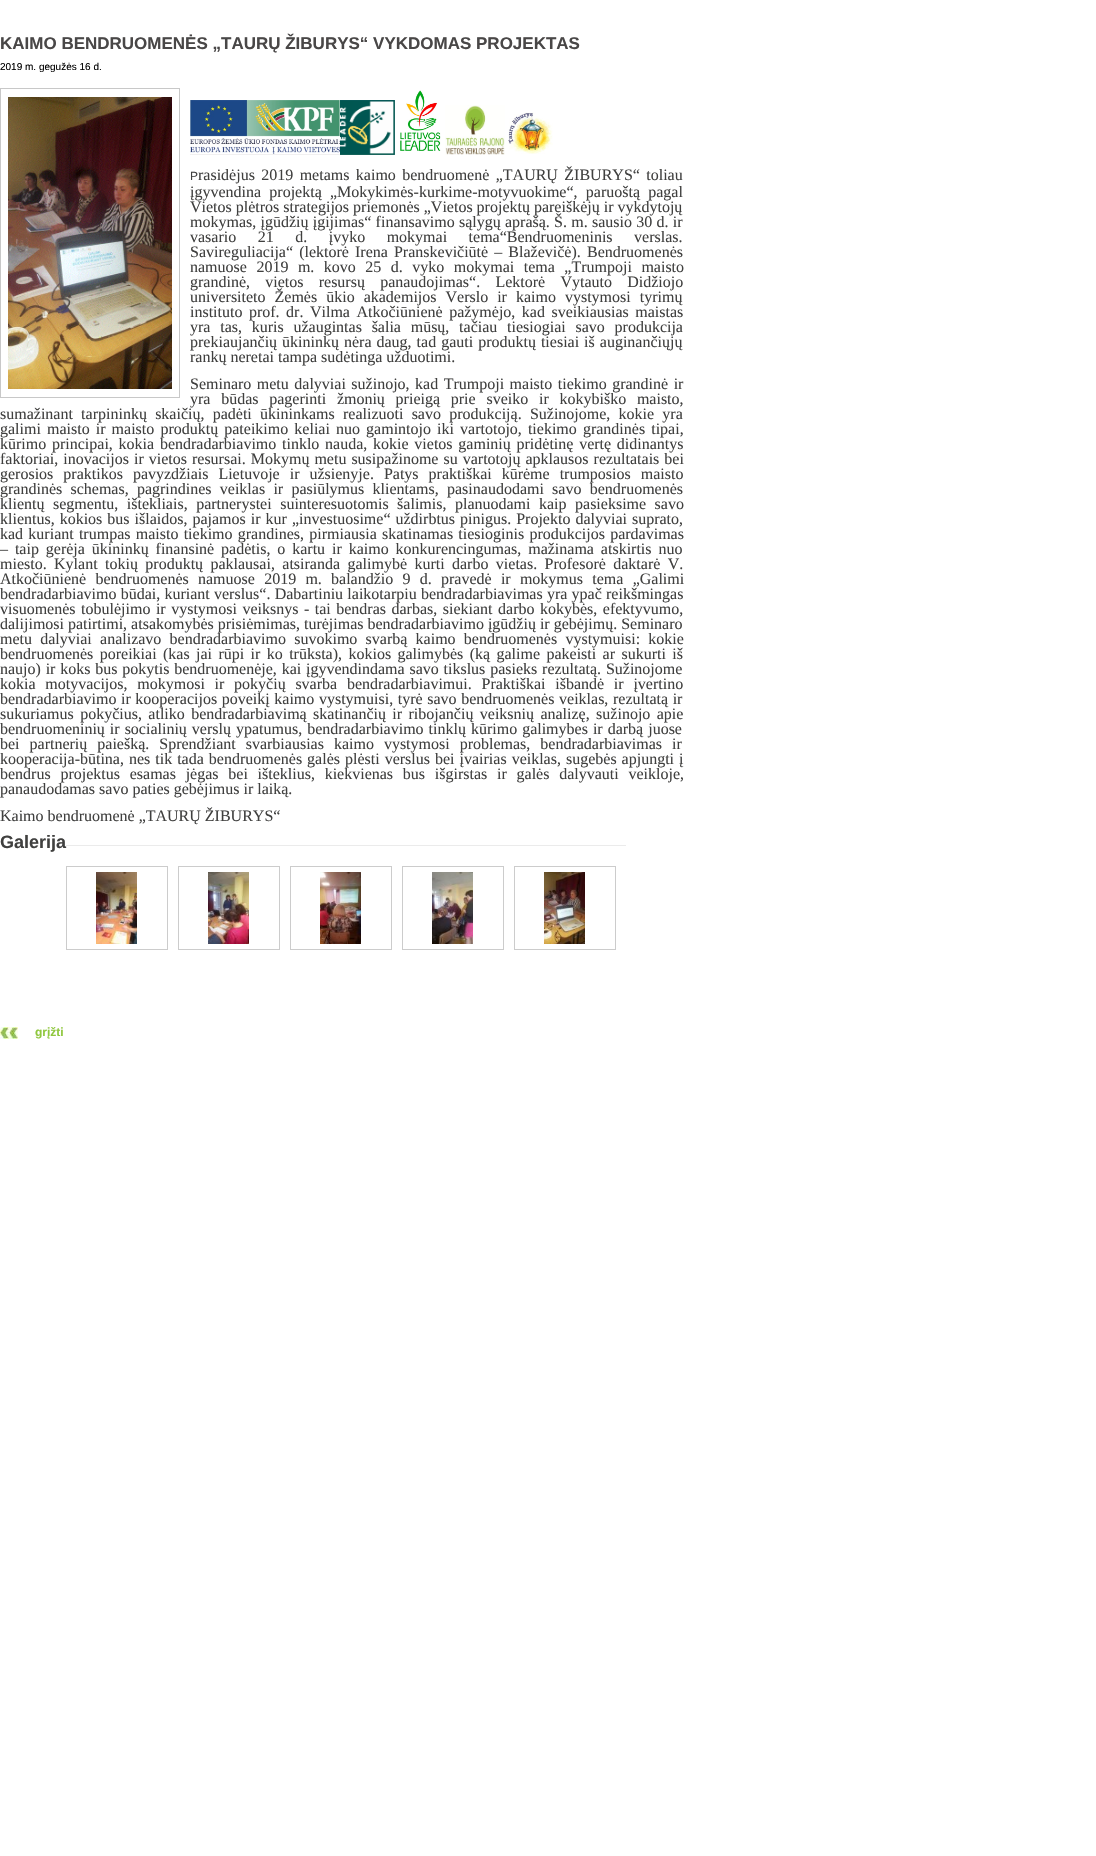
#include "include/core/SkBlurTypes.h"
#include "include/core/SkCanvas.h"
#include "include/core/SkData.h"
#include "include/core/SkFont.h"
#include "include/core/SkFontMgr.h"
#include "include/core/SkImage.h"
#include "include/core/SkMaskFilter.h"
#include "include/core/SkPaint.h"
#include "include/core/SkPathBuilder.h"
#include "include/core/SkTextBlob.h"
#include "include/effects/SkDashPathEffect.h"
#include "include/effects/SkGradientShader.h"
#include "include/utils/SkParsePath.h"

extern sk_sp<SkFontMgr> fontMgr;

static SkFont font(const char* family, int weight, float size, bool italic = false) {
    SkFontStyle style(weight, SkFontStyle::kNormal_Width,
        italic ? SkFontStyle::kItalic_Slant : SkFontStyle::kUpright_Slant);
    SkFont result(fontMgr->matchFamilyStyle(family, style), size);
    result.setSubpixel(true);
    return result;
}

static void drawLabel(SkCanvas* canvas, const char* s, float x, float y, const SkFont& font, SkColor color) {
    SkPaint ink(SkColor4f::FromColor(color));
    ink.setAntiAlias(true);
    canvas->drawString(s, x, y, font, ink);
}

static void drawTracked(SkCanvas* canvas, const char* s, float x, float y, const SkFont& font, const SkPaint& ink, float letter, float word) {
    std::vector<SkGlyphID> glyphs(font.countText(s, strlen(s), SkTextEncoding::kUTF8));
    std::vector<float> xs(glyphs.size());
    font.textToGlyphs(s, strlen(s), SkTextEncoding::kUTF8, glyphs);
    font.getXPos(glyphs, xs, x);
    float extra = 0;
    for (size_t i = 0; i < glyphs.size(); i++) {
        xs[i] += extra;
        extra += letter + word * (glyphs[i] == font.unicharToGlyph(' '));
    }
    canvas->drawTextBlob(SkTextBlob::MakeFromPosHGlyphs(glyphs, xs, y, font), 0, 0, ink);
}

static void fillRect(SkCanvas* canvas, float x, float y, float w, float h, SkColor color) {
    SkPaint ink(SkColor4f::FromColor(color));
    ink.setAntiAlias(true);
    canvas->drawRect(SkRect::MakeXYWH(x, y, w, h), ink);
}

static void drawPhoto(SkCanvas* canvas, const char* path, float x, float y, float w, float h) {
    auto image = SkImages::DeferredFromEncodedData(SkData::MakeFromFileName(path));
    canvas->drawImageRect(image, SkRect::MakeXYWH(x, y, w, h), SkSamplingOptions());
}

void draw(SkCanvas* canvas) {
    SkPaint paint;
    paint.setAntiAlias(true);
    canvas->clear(0xFFFFFFFF);
    SkFont font1 = font("Liberation Sans", 700, 17);
    drawLabel(canvas, "KAIMO BENDRUOMENĖS „TAURŲ ŽIBURYS“ VYKDOMAS PROJEKTAS", 0, 49, font1, 0xFF494747);
    SkFont font2 = font("Liberation Sans", 400, 10);
    drawLabel(canvas, "2019 m. gegužės 16 d.", 0, 70, font2, 0xFF000000);
    paint.setStroke(true);
    paint.setStrokeWidth(1);
    paint.setColor(0xFFC8C8C8);
    canvas->drawRect(SkRect::MakeXYWH(0.5f, 88.5f, 179, 309), paint);
    drawPhoto(canvas, "assets/img1.png", 8, 97, 164, 292);
    drawPhoto(canvas, "assets/img2.png", 190, 100, 150, 55);
    drawPhoto(canvas, "assets/img3.png", 340, 100, 55, 55);
    drawPhoto(canvas, "assets/img4.png", 400, 90, 41, 61);
    drawPhoto(canvas, "assets/img5.png", 445, 105, 60, 50);
    drawPhoto(canvas, "assets/img6.png", 508, 112, 45, 42);
    SkFont font3 = font("Liberation Sans", 400, 12);
    drawLabel(canvas, "P", 190, 180, font3, 0xFF40403F);
    SkFont font4 = font("Liberation Serif", 400, 16);
    paint.setStroke(false);
    paint.setColor(0xFF40403F);
    drawTracked(canvas, "rasidėjus 2019 metams kaimo bendruomenė „TAURŲ ŽIBURYS“ toliau", 198, 180, font4, paint, 0, 2.4f);
    drawTracked(canvas, "įgyvendina projektą „Mokykimės-kurkime-motyvuokime“, paruoštą pagal", 190, 197, font4, paint, 0, 4.25f);
    drawLabel(canvas, "Vietos plėtros strategijos priemonės „Vietos projektų pareiškėjų ir vykdytojų", 190, 212, font4, 0xFF40403F);
    drawTracked(canvas, "mokymas, įgūdžių įgijimas“ finansavimo sąlygų aprašą. Š. m. sausio 30 d. ir", 190, 227, font4, paint, 0, 0.25f);
    drawTracked(canvas, "vasario 21 d. įvyko mokymai tema“Bendruomeninis verslas.", 190, 242, font4, paint, 0, 17.5f);
    drawTracked(canvas, "Savireguliacija“ (lektorė Irena Pranskevičiūtė – Blaževičė).", 190, 257, font4, paint, 0, 2.1f);
    drawLabel(canvas, "Bendruomenės", 587, 257, font4, 0xFF40403F);
    drawTracked(canvas, "namuose 2019 m. kovo 25 d. vyko mokymai tema „Trumpoji maisto", 190, 272, font4, paint, 0, 5.5f);
    drawTracked(canvas, "grandinė, vietos resursų panaudojimas“. Lektorė Vytauto Didžiojo", 190, 287, font4, paint, 0, 11.25f);
    drawTracked(canvas, "universiteto Žemės ūkio akademijos Verslo ir kaimo vystymosi tyrimų", 190, 302, font4, paint, 0, 5);
    drawTracked(canvas, "instituto prof. dr. Vilma Atkočiūnienė pažymėjo, kad sveikiausias maistas", 190, 317, font4, paint, 0, 2.5f);
    drawTracked(canvas, "yra tas, kuris užaugintas šalia mūsų, tačiau tiesiogiai savo produkcija", 190, 332, font4, paint, 0, 5.75f);
    drawTracked(canvas, "prekiaujančių ūkininkų nėra daug, tad gauti produktų tiesiai iš auginančiųjų", 190, 347, font4, paint, 0, 1);
    drawLabel(canvas, "rankų neretai tampa sudėtinga užduotimi.", 190, 362, font4, 0xFF40403F);
    drawTracked(canvas, "Seminaro metu dalyviai sužinojo, kad Trumpoji maisto tiekimo grandinė ir", 190, 389, font4, paint, 0, 1.5f);
    drawTracked(canvas, "yra būdas pagerinti žmonių prieigą prie sveiko ir kokybiško maisto,", 190, 404, font4, paint, 0, 6.75f);
    drawTracked(canvas, "sumažinant tarpininkų skaičių, padėti ūkininkams realizuoti savo produkciją. Sužinojome, kokie yra", 0, 419, font4, paint, 0, 4.25f);
    drawTracked(canvas, "galimi maisto ir maisto produktų pateikimo keliai nuo gamintojo iki vartotojo, tiekimo grandinės tipai,", 0, 434, font4, paint, 0, 2.1f);
    drawTracked(canvas, "kūrimo principai, kokia bendradarbiavimo tinklo nauda, kokie vietos gaminių pridėtinę vertę didinantys", 0, 449, font4, paint, 0, 1.75f);
    drawTracked(canvas, "faktoriai, inovacijos ir vietos resursai. Mokymų metu susipažinome su vartotojų apklausos rezultatais bei", 0, 464, font4, paint, 0, 1);
    drawTracked(canvas, "gerosios praktikos pavyzdžiais Lietuvoje ir užsienyje. Patys praktiškai kūrėme trumposios maisto", 0, 479, font4, paint, 0, 6);
    drawTracked(canvas, "grandinės schemas, pagrindines veiklas ir pasiūlymus klientams, pasinaudodami savo bendruomenės", 0, 494, font4, paint, 0, 4.25f);
    drawTracked(canvas, "klientų segmentu, ištekliais, partnerystei suinteresuotomis šalimis, planuodami kaip pasieksime savo", 0, 509, font4, paint, 0, 4.5f);
    drawTracked(canvas, "klientus, kokios bus išlaidos, pajamos ir kur „investuosime“ uždirbtus pinigus. Projekto dalyviai suprato,", 0, 524, font4, paint, 0, 1);
    drawTracked(canvas, "kad kuriant trumpas maisto tiekimo grandines, pirmiausia skatinamas tiesioginis produkcijos pardavimas", 0, 539, font4, paint, 0, 1.25f);
    drawTracked(canvas, "– taip gerėja ūkininkų finansinė padėtis, o kartu ir kaimo konkurencingumas, mažinama atskirtis nuo", 0, 554, font4, paint, 0, 2.9f);
    drawTracked(canvas, "miesto. Kylant tokių produktų paklausai, atsiranda galimybė kurti darbo vietas. Profesorė daktarė V.", 0, 569, font4, paint, 0, 3.4f);
    drawTracked(canvas, "Atkočiūnienė bendruomenės namuose 2019 m. balandžio 9 d. pravedė ir mokymus tema „Galimi", 0, 584, font4, paint, 0, 5.25f);
    drawTracked(canvas, "bendradarbiavimo būdai, kuriant verslus“. Dabartiniu laikotarpiu bendradarbiavimas yra ypač reikšmingas", 0, 599, font4, paint, 0, 0.25f);
    drawTracked(canvas, "visuomenės tobulėjimo ir vystymosi veiksnys - tai bendras darbas, siekiant darbo kokybės, efektyvumo,", 0, 614, font4, paint, 0, 1.5f);
    drawLabel(canvas, "dalijimosi patirtimi, atsakomybės prisiėmimas, turėjimas bendradarbiavimo įgūdžių ir gebėjimų. Seminaro", 0, 629, font4, 0xFF40403F);
    drawTracked(canvas, "metu dalyviai analizavo bendradarbiavimo suvokimo svarbą kaimo bendruomenės vystymuisi: kokie", 0, 644, font4, paint, 0, 4.25f);
    drawTracked(canvas, "bendruomenės poreikiai (kas jai rūpi ir ko trūksta), kokios galimybės (ką galime pakeisti ar sukurti iš", 0, 659, font4, paint, 0, 2.4f);
    drawTracked(canvas, "naujo) ir koks bus pokytis bendruomenėje, kai įgyvendindama savo tikslus pasieks rezultatą. Sužinojome", 0, 674, font4, paint, 0, 0.8f);
    drawTracked(canvas, "kokia motyvacijos, mokymosi ir pokyčių svarba bendradarbiavimui. Praktiškai išbandė ir įvertino", 0, 689, font4, paint, 0, 5.75f);
    drawTracked(canvas, "bendradarbiavimo ir kooperacijos poveikį kaimo vystymuisi, tyrė savo bendruomenės veiklas, rezultatą ir", 0, 704, font4, paint, 0, 0.6f);
    drawTracked(canvas, "sukuriamus pokyčius, atliko bendradarbiavimą skatinančių ir ribojančių veiksnių analizę, sužinojo apie", 0, 719, font4, paint, 0, 2.4f);
    drawTracked(canvas, "bendruomeninių ir socialinių verslų ypatumus, bendradarbiavimo tinklų kūrimo galimybes ir darbą juose", 0, 734, font4, paint, 0, 1);
    drawTracked(canvas, "bei partnerių paiešką. Sprendžiant svarbiausias kaimo vystymosi problemas, bendradarbiavimas ir", 0, 749, font4, paint, 0, 6);
    drawTracked(canvas, "kooperacija-būtina, nes tik tada bendruomenės galės plėsti verslus bei įvairias veiklas, sugebės apjungti į", 0, 764, font4, paint, 0, 1);
    drawTracked(canvas, "bendrus projektus esamas jėgas bei išteklius, kiekvienas bus išgirstas ir galės dalyvauti veikloje,", 0, 779, font4, paint, 0, 5.75f);
    drawLabel(canvas, "panaudodamas savo paties gebėjimus ir laiką.", 0, 794, font4, 0xFF40403F);
    drawLabel(canvas, "Kaimo bendruomenė „TAURŲ ŽIBURYS“", 0, 821, font4, 0xFF40403F);
    SkFont font5 = font("Liberation Sans", 700, 18);
    drawLabel(canvas, "Galerija", 0, 848, font5, 0xFF40403F);
    fillRect(canvas, 66, 845, 560, 1, 0xFFEBEBEB);
    paint.setStroke(true);
    paint.setColor(0xFFCCCCCC);
    canvas->drawRect(SkRect::MakeXYWH(66.5f, 866.5f, 101, 83), paint);
    drawPhoto(canvas, "assets/img7.png", 96, 872, 41, 72);
    canvas->drawRect(SkRect::MakeXYWH(178.5f, 866.5f, 101, 83), paint);
    drawPhoto(canvas, "assets/img8.png", 208, 872, 41, 72);
    canvas->drawRect(SkRect::MakeXYWH(290.5f, 866.5f, 101, 83), paint);
    drawPhoto(canvas, "assets/img9.png", 320, 872, 41, 72);
    canvas->drawRect(SkRect::MakeXYWH(402.5f, 866.5f, 101, 83), paint);
    drawPhoto(canvas, "assets/img10.png", 432, 872, 41, 72);
    canvas->drawRect(SkRect::MakeXYWH(514.5f, 866.5f, 101, 83), paint);
    drawPhoto(canvas, "assets/img11.png", 544, 872, 41, 72);
    drawPhoto(canvas, "assets/img12.png", 0, 1027, 18, 12);
    SkFont font6 = font("Liberation Sans", 700, 12);
    drawLabel(canvas, "grįžti", 35, 1036, font6, 0xFF8FC73E);
}
